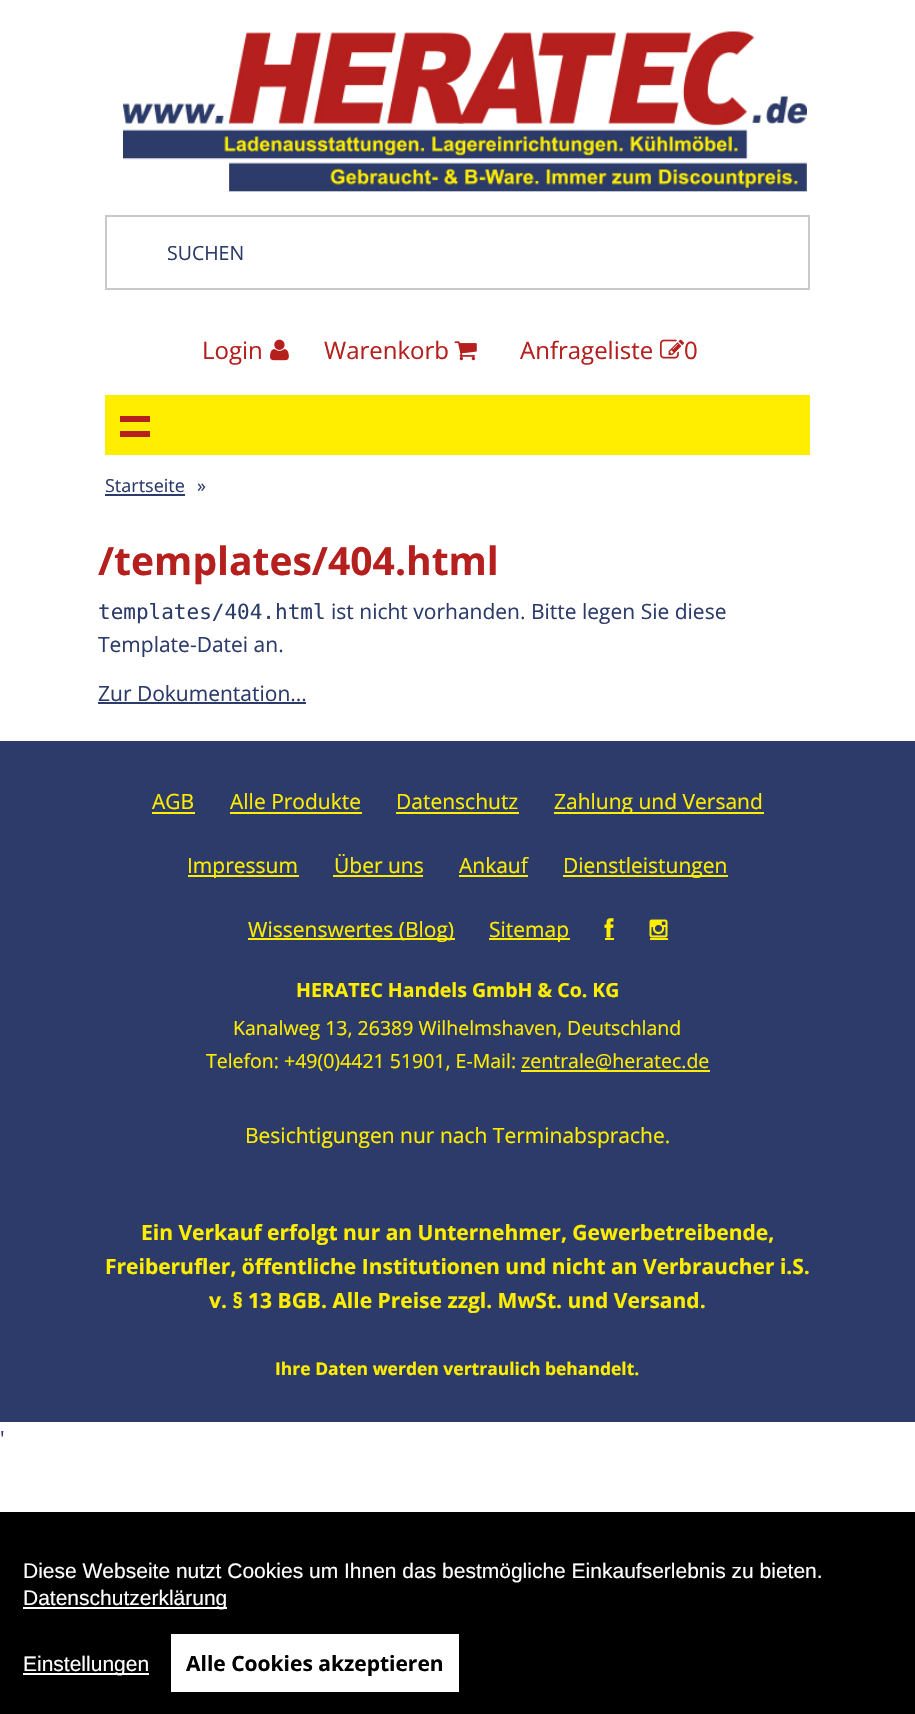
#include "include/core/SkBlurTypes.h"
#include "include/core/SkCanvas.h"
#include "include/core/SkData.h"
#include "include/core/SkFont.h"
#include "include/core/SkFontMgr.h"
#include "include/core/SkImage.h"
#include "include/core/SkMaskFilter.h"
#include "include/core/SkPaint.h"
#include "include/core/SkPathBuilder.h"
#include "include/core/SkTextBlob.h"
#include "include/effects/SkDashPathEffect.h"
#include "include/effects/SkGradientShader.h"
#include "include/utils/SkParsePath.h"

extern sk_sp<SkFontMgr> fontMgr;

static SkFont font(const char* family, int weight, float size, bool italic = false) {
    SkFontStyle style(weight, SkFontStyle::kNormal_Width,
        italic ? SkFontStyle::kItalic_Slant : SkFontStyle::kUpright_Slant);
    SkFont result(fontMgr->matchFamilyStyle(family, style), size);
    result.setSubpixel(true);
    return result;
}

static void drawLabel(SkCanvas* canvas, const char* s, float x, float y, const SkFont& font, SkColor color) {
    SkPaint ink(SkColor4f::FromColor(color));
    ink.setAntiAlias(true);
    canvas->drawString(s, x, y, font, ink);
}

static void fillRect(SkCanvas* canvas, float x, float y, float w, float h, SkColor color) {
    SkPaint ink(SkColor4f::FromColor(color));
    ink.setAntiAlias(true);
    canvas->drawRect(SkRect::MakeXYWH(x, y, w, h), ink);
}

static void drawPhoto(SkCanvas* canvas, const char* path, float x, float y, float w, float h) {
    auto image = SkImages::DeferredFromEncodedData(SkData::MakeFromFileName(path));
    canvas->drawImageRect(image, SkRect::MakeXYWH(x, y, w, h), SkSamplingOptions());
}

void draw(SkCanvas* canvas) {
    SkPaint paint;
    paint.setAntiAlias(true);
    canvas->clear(0xFFFFFFFF);
    drawPhoto(canvas, "assets/img1.png", 123, 31, 684, 161);
    paint.setStroke(true);
    paint.setStrokeWidth(2);
    paint.setColor(0xFFC9C9C9);
    canvas->drawRect(SkRect::MakeXYWH(106, 216, 703, 73), paint);
    SkFont font1 = font("Open Sans", 400, 19.5f);
    drawLabel(canvas, "SUCHEN", 167, 260, font1, 0xFF2C3B69);
    SkFont font2 = font("Open Sans", 400, 24);
    drawLabel(canvas, "Login", 202, 359, font2, 0xFFB51F1D);
    drawPhoto(canvas, "assets/img2.png", 270, 339, 19, 22);
    drawLabel(canvas, "Warenkorb", 324, 359, font2, 0xFFB51F1D);
    drawPhoto(canvas, "assets/img3.png", 454, 341, 23, 20);
    drawLabel(canvas, "Anfrageliste", 520, 359, font2, 0xFFB51F1D);
    drawPhoto(canvas, "assets/img4.png", 660, 339, 24, 20);
    drawLabel(canvas, "0", 684, 359, font2, 0xFFB51F1D);
    fillRect(canvas, 105, 395, 705, 60, 0xFFFFEE00);
    fillRect(canvas, 120, 416, 30, 6, 0xFFB51F1D);
    fillRect(canvas, 120, 431, 30, 6, 0xFFB51F1D);
    SkFont font3 = font("Open Sans", 400, 18);
    drawLabel(canvas, "Startseite", 105, 492, font3, 0xFF2C3B69);
    fillRect(canvas, 105, 494, 80, 2, 0xFF2C3B69);
    drawLabel(canvas, "»", 197, 492, font3, 0xFF2C3B69);
    SkFont font4 = font("Open Sans", 700, 39);
    drawLabel(canvas, "/templates/404.html", 98, 575, font4, 0xFFB51F1D);
    SkFont font5 = font("DejaVu Sans Mono", 400, 21);
    drawLabel(canvas, "templates/404.html", 98, 619, font5, 0xFF2C3B69);
    SkFont font6 = font("Open Sans", 400, 21);
    drawLabel(canvas, "ist nicht vorhanden. Bitte legen Sie diese", 331, 619, font6, 0xFF2C3B69);
    drawLabel(canvas, "Template-Datei an.", 98, 652, font6, 0xFF2C3B69);
    drawLabel(canvas, "Zur Dokumentation...", 98, 701, font6, 0xFF2C3B69);
    fillRect(canvas, 98, 702, 208, 2, 0xFF2C3B69);
    fillRect(canvas, 0, 741, 915, 681, 0xFF2C3B69);
    drawLabel(canvas, "AGB", 152, 809, font6, 0xFFFFEE00);
    fillRect(canvas, 152, 812, 43, 2, 0xFFFFEE00);
    drawLabel(canvas, "Alle Produkte", 230, 809, font6, 0xFFFFEE00);
    fillRect(canvas, 230, 812, 132, 2, 0xFFFFEE00);
    drawLabel(canvas, "Datenschutz", 396, 809, font6, 0xFFFFEE00);
    fillRect(canvas, 396, 812, 123, 2, 0xFFFFEE00);
    fillRect(canvas, 554, 812, 210, 2, 0xFFFFEE00);
    drawLabel(canvas, "Zahlung und Versand", 554, 809, font6, 0xFFFFEE00);
    fillRect(canvas, 188, 875, 111, 2, 0xFFFFEE00);
    drawLabel(canvas, "Impressum", 187, 873, font6, 0xFFFFEE00);
    drawLabel(canvas, "Über uns", 334, 873, font6, 0xFFFFEE00);
    fillRect(canvas, 333, 875, 90, 2, 0xFFFFEE00);
    drawLabel(canvas, "Ankauf", 459, 873, font6, 0xFFFFEE00);
    fillRect(canvas, 459, 875, 69, 2, 0xFFFFEE00);
    fillRect(canvas, 563, 875, 165, 2, 0xFFFFEE00);
    drawLabel(canvas, "Dienstleistungen", 563, 873, font6, 0xFFFFEE00);
    fillRect(canvas, 248, 938, 207, 2, 0xFFFFEE00);
    drawLabel(canvas, "Wissenswertes (Blog)", 248, 937, font6, 0xFFFFEE00);
    fillRect(canvas, 489, 938, 81, 2, 0xFFFFEE00);
    drawLabel(canvas, "Sitemap", 489, 937, font6, 0xFFFFEE00);
    fillRect(canvas, 605, 938, 9, 2, 0xFFFFEE00);
    drawPhoto(canvas, "assets/img5.png", 604, 918, 10, 20);
    fillRect(canvas, 650, 938, 18, 2, 0xFFFFEE00);
    drawPhoto(canvas, "assets/img6.png", 649, 919, 19, 19);
    SkFont font7 = font("Open Sans", 700, 19.5f);
    drawLabel(canvas, "HERATEC Handels GmbH & Co. KG", 296, 997, font7, 0xFFFFEE00);
    drawLabel(canvas, "Kanalweg 13, 26389 Wilhelmshaven, Deutschland", 233, 1035, font1, 0xFFFFEE00);
    drawLabel(canvas, "Telefon: +49(0)4421 51901, E-Mail: zentrale@heratec.de", 206, 1068, font1, 0xFFFFEE00);
    fillRect(canvas, 521, 1070, 189, 2, 0xFFFFEE00);
    drawLabel(canvas, "Besichtigungen nur nach Terminabsprache.", 245, 1143, font6, 0xFFFFEE00);
    SkFont font8 = font("Open Sans", 700, 21);
    drawLabel(canvas, "Ein Verkauf erfolgt nur an Unternehmer, Gewerbetreibende,", 141, 1240, font8, 0xFFFFEE00);
    drawLabel(canvas, "Freiberufler, öffentliche Institutionen und nicht an Verbraucher i.S.", 105, 1274, font8, 0xFFFFEE00);
    drawLabel(canvas, "v. § 13 BGB. Alle Preise zzgl. MwSt. und Versand.", 209, 1308, font8, 0xFFFFEE00);
    SkFont font9 = font("Open Sans", 700, 17.5f);
    drawLabel(canvas, "Ihre Daten werden vertraulich behandelt.", 275, 1375, font9, 0xFFFFEE00);
    drawLabel(canvas, "'", 0, 1446, font6, 0xFF2C3B69);
    fillRect(canvas, 0, 1512, 915, 202, 0xFF000000);
    SkFont font10 = font("Liberation Sans", 400, 21);
    drawLabel(canvas, "Diese Webseite nutzt Cookies um Ihnen das bestmögliche Einkaufserlebnis zu bieten.", 23, 1578, font10, 0xFFFFFFFF);
    fillRect(canvas, 23, 1607, 204, 2, 0xFFFFFFFF);
    drawLabel(canvas, "Datenschutzerklärung", 23, 1605, font10, 0xFFFFFFFF);
    fillRect(canvas, 23, 1673, 126, 2, 0xFFFFFFFF);
    drawLabel(canvas, "Einstellungen", 23, 1671, font10, 0xFFFFFFFF);
    fillRect(canvas, 171, 1634, 288, 58, 0xFFFFFFFF);
    drawLabel(canvas, "Alle Cookies akzeptieren", 186, 1671, font8, 0xFF000000);
}
